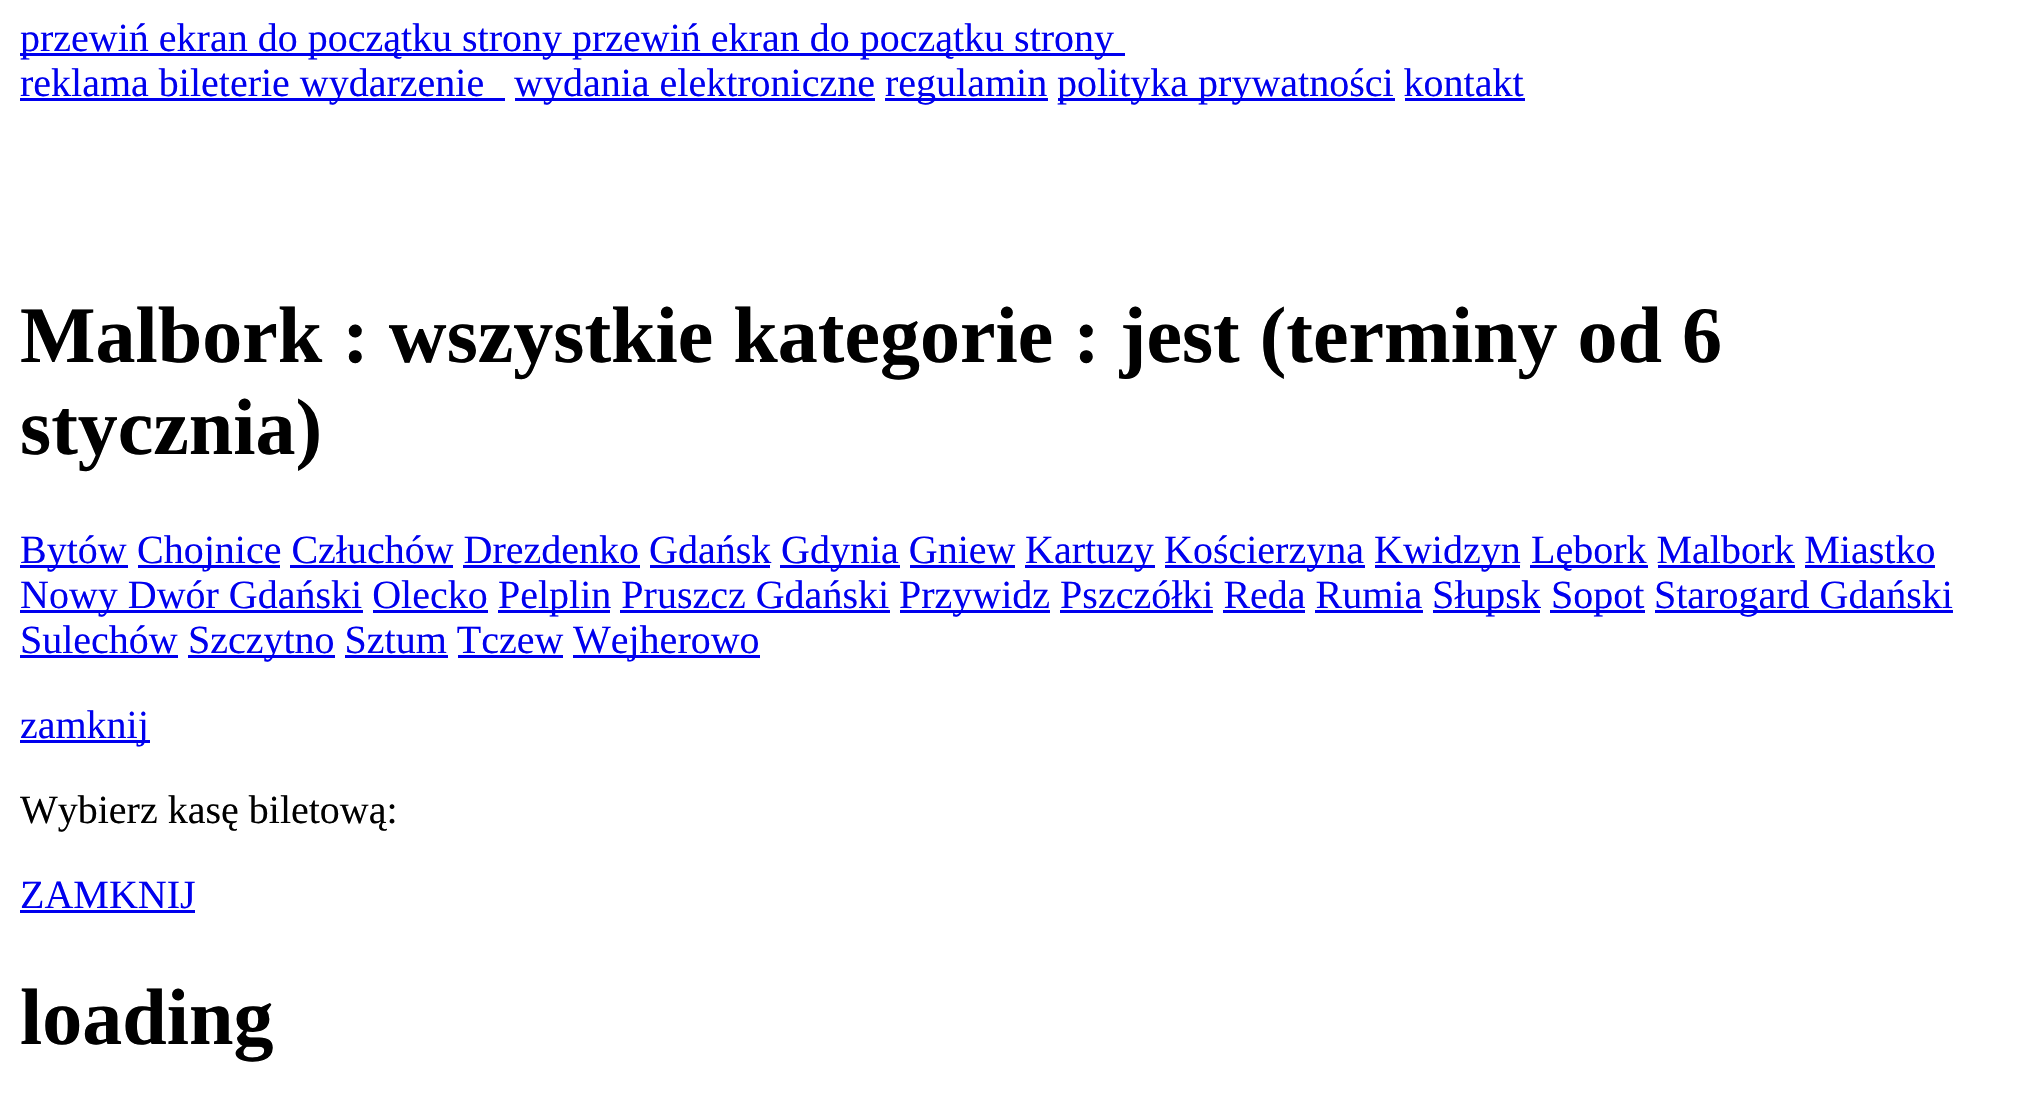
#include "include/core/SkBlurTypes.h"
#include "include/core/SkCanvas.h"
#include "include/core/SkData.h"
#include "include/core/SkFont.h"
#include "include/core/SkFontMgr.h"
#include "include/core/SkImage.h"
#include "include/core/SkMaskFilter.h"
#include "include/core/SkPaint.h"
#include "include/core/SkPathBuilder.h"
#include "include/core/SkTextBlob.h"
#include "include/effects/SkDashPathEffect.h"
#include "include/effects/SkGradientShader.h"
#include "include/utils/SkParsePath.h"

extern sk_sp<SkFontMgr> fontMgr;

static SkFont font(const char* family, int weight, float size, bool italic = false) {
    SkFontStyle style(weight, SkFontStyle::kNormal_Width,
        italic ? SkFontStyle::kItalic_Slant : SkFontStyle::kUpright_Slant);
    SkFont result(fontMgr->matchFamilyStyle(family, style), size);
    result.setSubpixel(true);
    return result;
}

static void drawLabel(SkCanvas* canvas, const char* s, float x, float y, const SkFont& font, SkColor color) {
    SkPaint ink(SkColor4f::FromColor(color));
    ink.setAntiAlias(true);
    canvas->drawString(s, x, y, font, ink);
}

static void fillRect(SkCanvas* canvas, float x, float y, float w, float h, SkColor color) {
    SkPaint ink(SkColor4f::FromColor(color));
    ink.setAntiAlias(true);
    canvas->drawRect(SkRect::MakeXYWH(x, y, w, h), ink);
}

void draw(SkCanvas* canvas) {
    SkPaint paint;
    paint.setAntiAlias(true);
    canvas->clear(0xFFFFFFFF);
    fillRect(canvas, 20, 53, 1105, 3, 0xFF0000EE);
    SkFont font1 = font("Liberation Serif", 400, 40);
    drawLabel(canvas, "przewiń ekran do początku strony przewiń ekran do początku strony", 20, 51, font1, 0xFF0000EE);
    fillRect(canvas, 20, 98, 485, 3, 0xFF0000EE);
    drawLabel(canvas, "reklama bileterie wydarzenie", 20, 96, font1, 0xFF0000EE);
    fillRect(canvas, 515, 98, 360, 3, 0xFF0000EE);
    drawLabel(canvas, "wydania elektroniczne", 514, 96, font1, 0xFF0000EE);
    fillRect(canvas, 885, 98, 163, 3, 0xFF0000EE);
    drawLabel(canvas, "regulamin", 885, 96, font1, 0xFF0000EE);
    fillRect(canvas, 1058, 98, 337, 3, 0xFF0000EE);
    drawLabel(canvas, "polityka prywatności kontakt", 1057, 96, font1, 0xFF0000EE);
    fillRect(canvas, 1405, 98, 120, 3, 0xFF0000EE);
    SkFont font2 = font("Liberation Serif", 700, 80);
    drawLabel(canvas, "Malbork : wszystkie kategorie : jest (terminy od 6", 20, 362, font2, 0xFF000000);
    drawLabel(canvas, "stycznia)", 20, 454, font2, 0xFF000000);
    fillRect(canvas, 20, 565, 108, 3, 0xFF0000EE);
    drawLabel(canvas, "Bytów", 20, 563, font1, 0xFF0000EE);
    fillRect(canvas, 138, 565, 142, 3, 0xFF0000EE);
    drawLabel(canvas, "Chojnice Człuchów Drezdenko Gdańsk", 137, 563, font1, 0xFF0000EE);
    fillRect(canvas, 780, 565, 120, 3, 0xFF0000EE);
    drawLabel(canvas, "Gdynia Gniew", 781, 563, font1, 0xFF0000EE);
    fillRect(canvas, 1025, 565, 130, 3, 0xFF0000EE);
    drawLabel(canvas, "Kartuzy", 1025, 563, font1, 0xFF0000EE);
    fillRect(canvas, 1165, 565, 200, 3, 0xFF0000EE);
    drawLabel(canvas, "Kościerzyna", 1164, 563, font1, 0xFF0000EE);
    fillRect(canvas, 1375, 565, 145, 3, 0xFF0000EE);
    drawLabel(canvas, "Kwidzyn", 1374, 563, font1, 0xFF0000EE);
    fillRect(canvas, 1530, 565, 118, 3, 0xFF0000EE);
    drawLabel(canvas, "Lębork Malbork Miastko", 1531, 563, font1, 0xFF0000EE);
    fillRect(canvas, 290, 565, 163, 3, 0xFF0000EE);
    fillRect(canvas, 463, 565, 177, 3, 0xFF0000EE);
    fillRect(canvas, 650, 565, 120, 3, 0xFF0000EE);
    fillRect(canvas, 910, 565, 105, 3, 0xFF0000EE);
    fillRect(canvas, 1658, 565, 137, 3, 0xFF0000EE);
    fillRect(canvas, 1805, 565, 130, 3, 0xFF0000EE);
    fillRect(canvas, 20, 610, 343, 3, 0xFF0000EE);
    drawLabel(canvas, "Nowy Dwór Gdański Olecko", 20, 608, font1, 0xFF0000EE);
    fillRect(canvas, 498, 610, 112, 3, 0xFF0000EE);
    drawLabel(canvas, "Pelplin Pruszcz Gdański", 498, 608, font1, 0xFF0000EE);
    fillRect(canvas, 900, 610, 150, 3, 0xFF0000EE);
    drawLabel(canvas, "Przywidz Pszczółki Reda Rumia", 899, 608, font1, 0xFF0000EE);
    fillRect(canvas, 1433, 610, 107, 3, 0xFF0000EE);
    drawLabel(canvas, "Słupsk", 1432, 608, font1, 0xFF0000EE);
    fillRect(canvas, 1550, 610, 95, 3, 0xFF0000EE);
    drawLabel(canvas, "Sopot", 1551, 608, font1, 0xFF0000EE);
    fillRect(canvas, 1655, 610, 298, 3, 0xFF0000EE);
    drawLabel(canvas, "Starogard Gdański", 1654, 608, font1, 0xFF0000EE);
    fillRect(canvas, 373, 610, 115, 3, 0xFF0000EE);
    fillRect(canvas, 620, 610, 270, 3, 0xFF0000EE);
    fillRect(canvas, 1060, 610, 153, 3, 0xFF0000EE);
    fillRect(canvas, 1223, 610, 82, 3, 0xFF0000EE);
    fillRect(canvas, 1315, 610, 108, 3, 0xFF0000EE);
    drawLabel(canvas, "Sulechów", 20, 653, font1, 0xFF0000EE);
    fillRect(canvas, 20, 655, 158, 3, 0xFF0000EE);
    fillRect(canvas, 188, 655, 147, 3, 0xFF0000EE);
    drawLabel(canvas, "Szczytno Sztum Tczew", 188, 653, font1, 0xFF0000EE);
    fillRect(canvas, 573, 655, 187, 3, 0xFF0000EE);
    drawLabel(canvas, "Wejherowo", 573, 653, font1, 0xFF0000EE);
    fillRect(canvas, 345, 655, 103, 3, 0xFF0000EE);
    fillRect(canvas, 458, 655, 105, 3, 0xFF0000EE);
    fillRect(canvas, 20, 740, 130, 3, 0xFF0000EE);
    drawLabel(canvas, "zamknij", 20, 738, font1, 0xFF0000EE);
    drawLabel(canvas, "Wybierz kasę biletową:", 20, 823, font1, 0xFF000000);
    drawLabel(canvas, "ZAMKNIJ", 20, 908, font1, 0xFF0000EE);
    fillRect(canvas, 20, 910, 175, 3, 0xFF0000EE);
    drawLabel(canvas, "loading", 20, 1044, font2, 0xFF000000);
}
